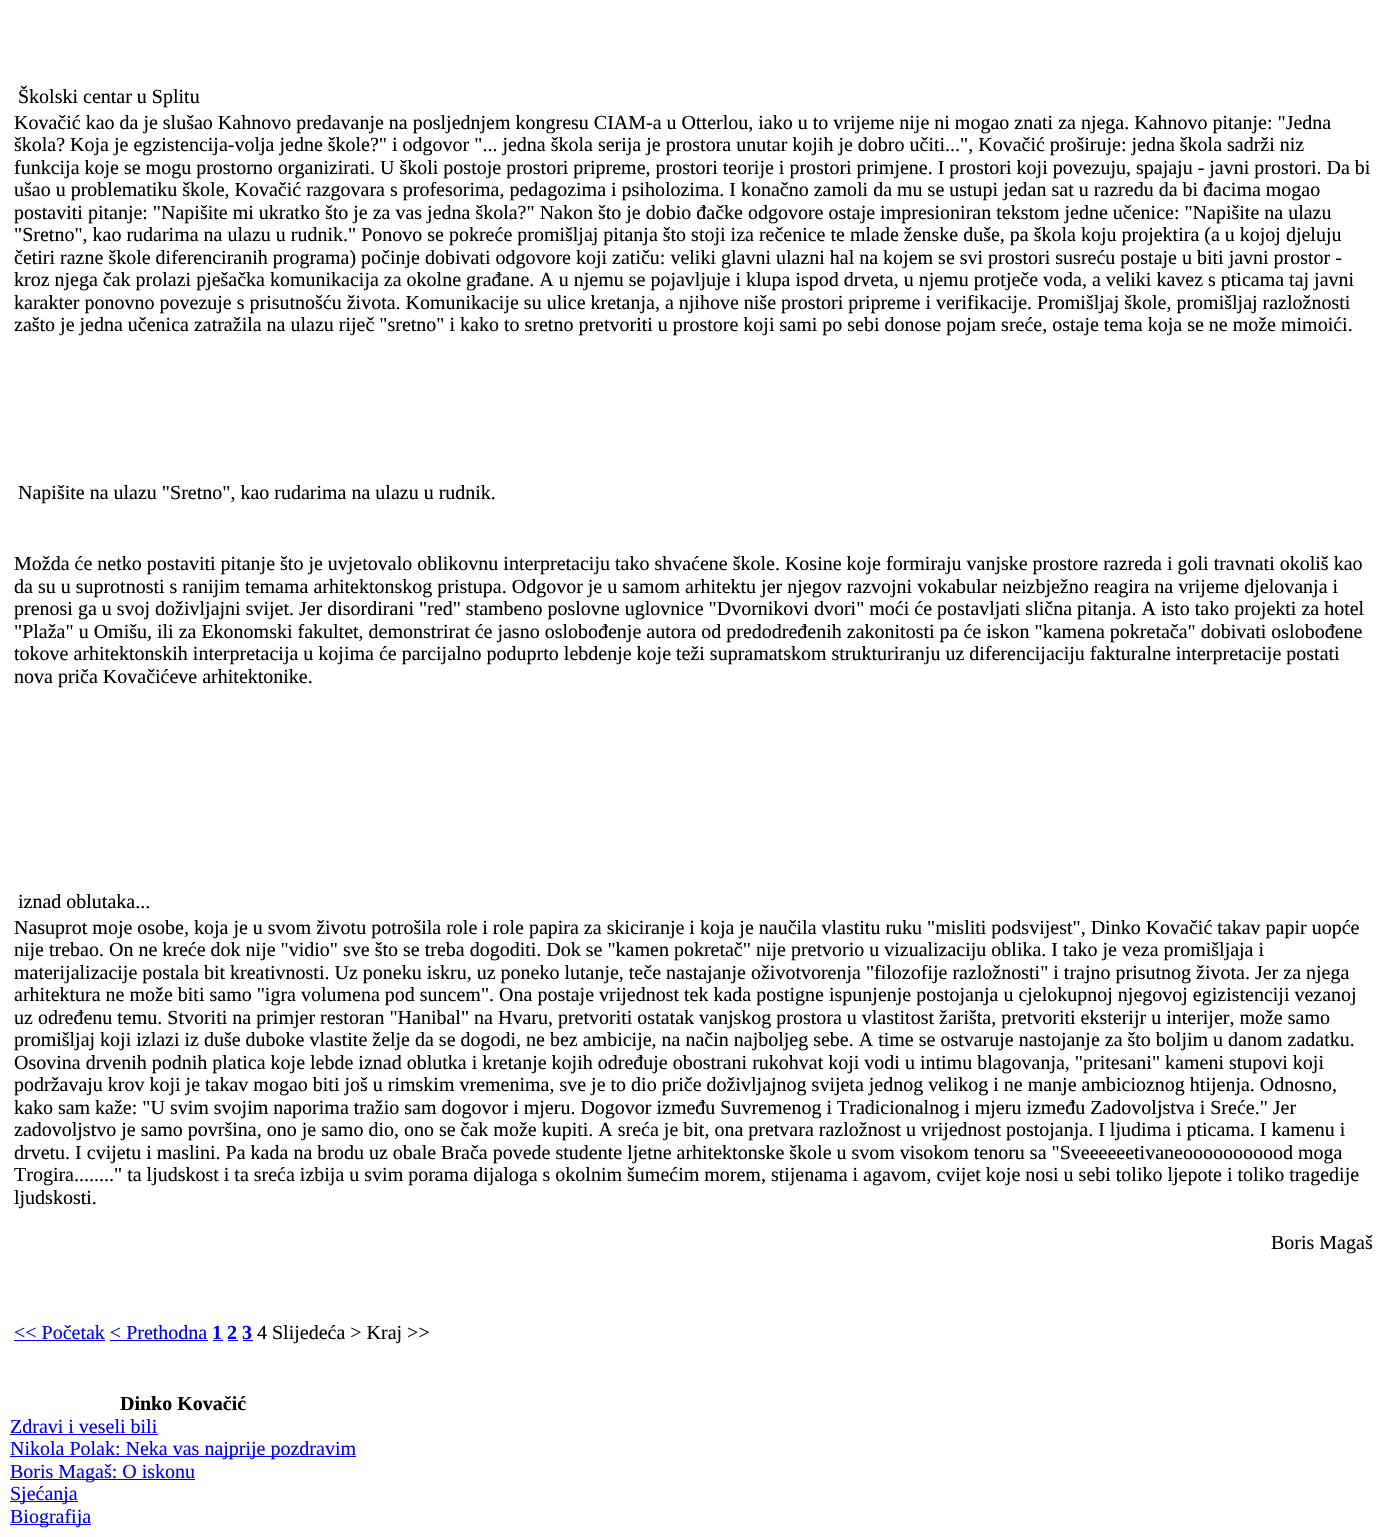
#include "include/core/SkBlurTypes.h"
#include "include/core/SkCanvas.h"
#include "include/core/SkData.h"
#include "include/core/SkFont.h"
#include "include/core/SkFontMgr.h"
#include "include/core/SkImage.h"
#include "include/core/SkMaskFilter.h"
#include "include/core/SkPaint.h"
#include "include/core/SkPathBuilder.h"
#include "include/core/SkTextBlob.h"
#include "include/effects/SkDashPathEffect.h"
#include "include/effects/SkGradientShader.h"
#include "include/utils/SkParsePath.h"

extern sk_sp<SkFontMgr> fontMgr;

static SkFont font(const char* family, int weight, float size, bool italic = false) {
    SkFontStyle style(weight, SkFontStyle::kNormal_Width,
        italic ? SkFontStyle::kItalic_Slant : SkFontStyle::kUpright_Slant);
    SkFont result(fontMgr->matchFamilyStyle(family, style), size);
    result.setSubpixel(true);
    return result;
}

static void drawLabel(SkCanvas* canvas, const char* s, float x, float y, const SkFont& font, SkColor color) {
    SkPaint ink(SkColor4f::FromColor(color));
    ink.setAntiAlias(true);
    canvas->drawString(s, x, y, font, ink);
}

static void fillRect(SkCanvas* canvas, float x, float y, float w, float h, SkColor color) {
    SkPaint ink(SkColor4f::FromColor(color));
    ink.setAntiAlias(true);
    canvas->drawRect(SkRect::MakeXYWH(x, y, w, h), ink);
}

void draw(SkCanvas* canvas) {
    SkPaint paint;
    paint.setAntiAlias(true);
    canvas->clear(0xFFFFFFFF);
    SkFont font1 = font("Liberation Serif", 400, 20);
    drawLabel(canvas, "Školski centar u Splitu", 18, 103, font1, 0xFF000000);
    drawLabel(canvas, "Kovačić kao da je slušao Kahnovo predavanje na posljednjem kongresu CIAM-a u Otterlou, iako u to vrijeme nije ni mogao znati za njega. Kahnovo pitanje: \"Jedna", 14, 129, font1, 0xFF000000);
    drawLabel(canvas, "škola? Koja je egzistencija-volja jedne škole?\" i odgovor \"... jedna škola serija je prostora unutar kojih je dobro učiti...\", Kovačić proširuje: jedna škola sadrži niz", 14, 151, font1, 0xFF000000);
    drawLabel(canvas, "funkcija koje se mogu prostorno organizirati. U školi postoje prostori pripreme, prostori teorije i prostori primjene. I prostori koji povezuju, spajaju - javni prostori. Da bi", 14, 174, font1, 0xFF000000);
    drawLabel(canvas, "ušao u problematiku škole, Kovačić razgovara s profesorima, pedagozima i psiholozima. I konačno zamoli da mu se ustupi jedan sat u razredu da bi đacima mogao", 14, 196, font1, 0xFF000000);
    drawLabel(canvas, "postaviti pitanje: \"Napišite mi ukratko što je za vas jedna škola?\" Nakon što je dobio đačke odgovore ostaje impresioniran tekstom jedne učenice: \"Napišite na ulazu", 14, 219, font1, 0xFF000000);
    drawLabel(canvas, "\"Sretno\", kao rudarima na ulazu u rudnik.\" Ponovo se pokreće promišljaj pitanja što stoji iza rečenice te mlade ženske duše, pa škola koju projektira (a u kojoj djeluju", 14, 241, font1, 0xFF000000);
    drawLabel(canvas, "četiri razne škole diferenciranih programa) počinje dobivati odgovore koji zatiču: veliki glavni ulazni hal na kojem se svi prostori susreću postaje u biti javni prostor -", 14, 264, font1, 0xFF000000);
    drawLabel(canvas, "kroz njega čak prolazi pješačka komunikacija za okolne građane. A u njemu se pojavljuje i klupa ispod drveta, u njemu protječe voda, a veliki kavez s pticama taj javni", 14, 286, font1, 0xFF000000);
    drawLabel(canvas, "karakter ponovno povezuje s prisutnošću života. Komunikacije su ulice kretanja, a njihove niše prostori pripreme i verifikacije. Promišljaj škole, promišljaj razložnosti", 14, 309, font1, 0xFF000000);
    drawLabel(canvas, "zašto je jedna učenica zatražila na ulazu riječ \"sretno\" i kako to sretno pretvoriti u prostore koji sami po sebi donose pojam sreće, ostaje tema koja se ne može mimoići.", 14, 331, font1, 0xFF000000);
    drawLabel(canvas, "Napišite na ulazu \"Sretno\", kao rudarima na ulazu u rudnik.", 18, 499, font1, 0xFF000000);
    drawLabel(canvas, "Možda će netko postaviti pitanje što je uvjetovalo oblikovnu interpretaciju tako shvaćene škole. Kosine koje formiraju vanjske prostore razreda i goli travnati okoliš kao", 14, 570, font1, 0xFF000000);
    drawLabel(canvas, "da su u suprotnosti s ranijim temama arhitektonskog pristupa. Odgovor je u samom arhitektu jer njegov razvojni vokabular neizbježno reagira na vrijeme djelovanja i", 14, 593, font1, 0xFF000000);
    drawLabel(canvas, "prenosi ga u svoj doživljajni svijet. Jer disordirani \"red\" stambeno poslovne uglovnice \"Dvornikovi dvori\" moći će postavljati slična pitanja. A isto tako projekti za hotel", 14, 615, font1, 0xFF000000);
    drawLabel(canvas, "\"Plaža\" u Omišu, ili za Ekonomski fakultet, demonstrirat će jasno oslobođenje autora od predodređenih zakonitosti pa će iskon \"kamena pokretača\" dobivati oslobođene", 14, 638, font1, 0xFF000000);
    drawLabel(canvas, "tokove arhitektonskih interpretacija u kojima će parcijalno poduprto lebdenje koje teži supramatskom strukturiranju uz diferencijaciju fakturalne interpretacije postati", 14, 660, font1, 0xFF000000);
    drawLabel(canvas, "nova priča Kovačićeve arhitektonike.", 14, 683, font1, 0xFF000000);
    drawLabel(canvas, "iznad oblutaka...", 18, 908, font1, 0xFF000000);
    drawLabel(canvas, "Nasuprot moje osobe, koja je u svom životu potrošila role i role papira za skiciranje i koja je naučila vlastitu ruku \"misliti podsvijest\", Dinko Kovačić takav papir uopće", 14, 934, font1, 0xFF000000);
    drawLabel(canvas, "nije trebao. On ne kreće dok nije \"vidio\" sve što se treba dogoditi. Dok se \"kamen pokretač\" nije pretvorio u vizualizaciju oblika. I tako je veza promišljaja i", 14, 956, font1, 0xFF000000);
    drawLabel(canvas, "materijalizacije postala bit kreativnosti. Uz poneku iskru, uz poneko lutanje, teče nastajanje oživotvorenja \"filozofije razložnosti\" i trajno prisutnog života. Jer za njega", 14, 979, font1, 0xFF000000);
    drawLabel(canvas, "arhitektura ne može biti samo \"igra volumena pod suncem\". Ona postaje vrijednost tek kada postigne ispunjenje postojanja u cjelokupnoj njegovoj egizistenciji vezanoj", 14, 1001, font1, 0xFF000000);
    drawLabel(canvas, "uz određenu temu. Stvoriti na primjer restoran \"Hanibal\" na Hvaru, pretvoriti ostatak vanjskog prostora u vlastitost žarišta, pretvoriti eksterijr u interijer, može samo", 14, 1024, font1, 0xFF000000);
    drawLabel(canvas, "promišljaj koji izlazi iz duše duboke vlastite želje da se dogodi, ne bez ambicije, na način najboljeg sebe. A time se ostvaruje nastojanje za što boljim u danom zadatku.", 14, 1046, font1, 0xFF000000);
    drawLabel(canvas, "Osovina drvenih podnih platica koje lebde iznad oblutka i kretanje kojih određuje obostrani rukohvat koji vodi u intimu blagovanja, \"pritesani\" kameni stupovi koji", 14, 1069, font1, 0xFF000000);
    drawLabel(canvas, "podržavaju krov koji je takav mogao biti još u rimskim vremenima, sve je to dio priče doživljajnog svijeta jednog velikog i ne manje ambicioznog htijenja. Odnosno,", 14, 1091, font1, 0xFF000000);
    drawLabel(canvas, "kako sam kaže: \"U svim svojim naporima tražio sam dogovor i mjeru. Dogovor između Suvremenog i Tradicionalnog i mjeru između Zadovoljstva i Sreće.\" Jer", 14, 1114, font1, 0xFF000000);
    drawLabel(canvas, "zadovoljstvo je samo površina, ono je samo dio, ono se čak može kupiti. A sreća je bit, ona pretvara razložnost u vrijednost postojanja. I ljudima i pticama. I kamenu i", 14, 1136, font1, 0xFF000000);
    drawLabel(canvas, "drvetu. I cvijetu i maslini. Pa kada na brodu uz obale Brača povede studente ljetne arhitektonske škole u svom visokom tenoru sa \"Sveeeeeetivaneooooooooood moga", 14, 1159, font1, 0xFF000000);
    drawLabel(canvas, "Trogira........\" ta ljudskost i ta sreća izbija u svim porama dijaloga s okolnim šumećim morem, stijenama i agavom, cvijet koje nosi u sebi toliko ljepote i toliko tragedije", 14, 1181, font1, 0xFF000000);
    drawLabel(canvas, "ljudskosti.", 14, 1204, font1, 0xFF000000);
    drawLabel(canvas, "Boris Magaš", 1271, 1249, font1, 0xFF000000);
    drawLabel(canvas, "<< Početak < Prethodna", 14, 1339, font1, 0xFF0000EE);
    fillRect(canvas, 14, 1340, 91, 1, 0xFF0000EE);
    SkFont font2 = font("Liberation Serif", 700, 20);
    drawLabel(canvas, "1 2 3", 212, 1339, font2, 0xFF0000EE);
    fillRect(canvas, 213, 1340, 10, 1, 0xFF0000EE);
    drawLabel(canvas, "4 Slijedeća > Kraj >>", 257, 1339, font1, 0xFF000000);
    fillRect(canvas, 110, 1340, 98, 1, 0xFF0000EE);
    fillRect(canvas, 228, 1340, 10, 1, 0xFF0000EE);
    fillRect(canvas, 243, 1340, 10, 1, 0xFF0000EE);
    drawLabel(canvas, "Dinko Kovačić", 120, 1410, font2, 0xFF000000);
    drawLabel(canvas, "Zdravi i veseli bili", 10, 1433, font1, 0xFF0000EE);
    fillRect(canvas, 10, 1434, 148, 1, 0xFF0000EE);
    fillRect(canvas, 10, 1456, 346, 1, 0xFF0000EE);
    drawLabel(canvas, "Nikola Polak: Neka vas najprije pozdravim", 10, 1455, font1, 0xFF0000EE);
    fillRect(canvas, 10, 1479, 185, 1, 0xFF0000EE);
    drawLabel(canvas, "Boris Magaš: O iskonu", 10, 1478, font1, 0xFF0000EE);
    fillRect(canvas, 10, 1501, 68, 1, 0xFF0000EE);
    drawLabel(canvas, "Sjećanja", 10, 1500, font1, 0xFF0000EE);
    fillRect(canvas, 10, 1524, 81, 1, 0xFF0000EE);
    drawLabel(canvas, "Biografija", 10, 1523, font1, 0xFF0000EE);
}
